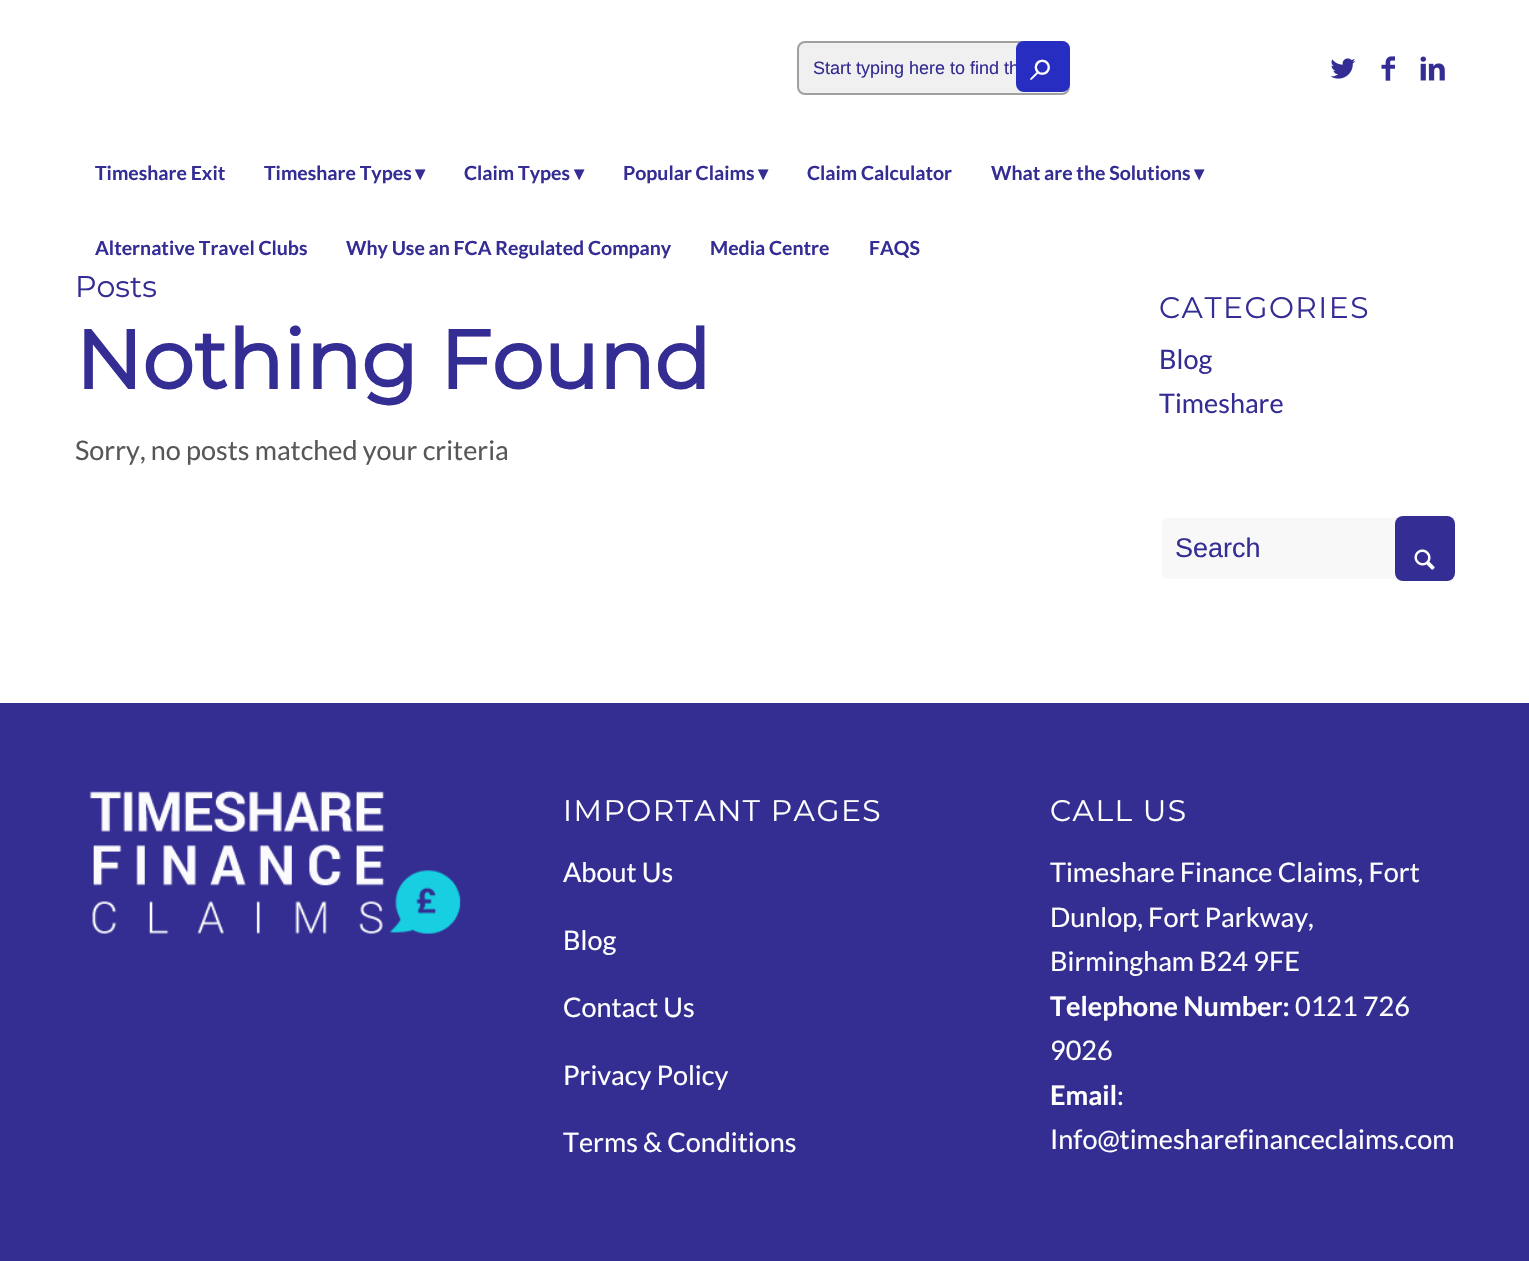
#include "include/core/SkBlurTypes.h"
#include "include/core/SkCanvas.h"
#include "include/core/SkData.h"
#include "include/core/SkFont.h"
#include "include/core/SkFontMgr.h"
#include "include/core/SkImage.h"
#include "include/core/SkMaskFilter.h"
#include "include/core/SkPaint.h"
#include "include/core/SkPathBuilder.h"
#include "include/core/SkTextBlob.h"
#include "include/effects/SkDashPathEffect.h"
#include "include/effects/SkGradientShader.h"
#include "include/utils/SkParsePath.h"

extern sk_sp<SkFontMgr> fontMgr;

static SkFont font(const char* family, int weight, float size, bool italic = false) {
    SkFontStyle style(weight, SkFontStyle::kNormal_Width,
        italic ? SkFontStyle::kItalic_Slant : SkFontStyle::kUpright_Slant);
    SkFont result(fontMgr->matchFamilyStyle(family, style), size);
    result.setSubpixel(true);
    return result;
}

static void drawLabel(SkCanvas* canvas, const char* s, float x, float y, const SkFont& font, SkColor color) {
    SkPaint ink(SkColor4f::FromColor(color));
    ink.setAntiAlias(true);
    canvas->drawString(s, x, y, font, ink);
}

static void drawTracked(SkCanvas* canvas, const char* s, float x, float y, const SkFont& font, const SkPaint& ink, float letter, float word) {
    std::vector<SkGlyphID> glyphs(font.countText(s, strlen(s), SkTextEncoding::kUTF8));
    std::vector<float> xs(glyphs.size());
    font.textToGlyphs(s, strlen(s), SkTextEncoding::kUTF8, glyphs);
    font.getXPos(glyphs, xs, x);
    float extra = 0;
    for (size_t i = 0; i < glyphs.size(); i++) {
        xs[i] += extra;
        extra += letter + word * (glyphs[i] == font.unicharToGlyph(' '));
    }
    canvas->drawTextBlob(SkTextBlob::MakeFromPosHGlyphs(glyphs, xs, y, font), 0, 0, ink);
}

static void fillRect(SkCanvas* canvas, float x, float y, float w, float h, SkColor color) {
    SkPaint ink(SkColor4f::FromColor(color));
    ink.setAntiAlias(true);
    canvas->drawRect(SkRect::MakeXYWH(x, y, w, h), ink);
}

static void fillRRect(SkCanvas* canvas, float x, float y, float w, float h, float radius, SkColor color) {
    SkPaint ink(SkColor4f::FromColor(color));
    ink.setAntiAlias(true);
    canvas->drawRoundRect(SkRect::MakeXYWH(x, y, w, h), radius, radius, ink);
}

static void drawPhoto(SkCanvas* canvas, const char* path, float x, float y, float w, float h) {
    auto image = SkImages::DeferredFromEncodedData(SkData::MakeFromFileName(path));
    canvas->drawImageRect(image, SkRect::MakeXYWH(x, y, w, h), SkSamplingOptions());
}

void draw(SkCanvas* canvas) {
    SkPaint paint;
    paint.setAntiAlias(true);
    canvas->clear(0xFFFFFFFF);
    paint.setColor(0xFFF0F0F0);
    canvas->drawRoundRect(SkRect::MakeXYWH(798, 42, 271, 52), 7, 7, paint);
    paint.setStroke(true);
    paint.setStrokeWidth(2);
    paint.setColor(0xFFA0A0A0);
    canvas->drawRoundRect(SkRect::MakeXYWH(798, 42, 271, 52), 7, 7, paint);
    SkFont font1 = font("Liberation Sans", 400, 18);
    drawLabel(canvas, "Start typing here to find th", 813, 74, font1, 0xFF342D94);
    fillRRect(canvas, 1016, 41, 54, 51, 8, 0xFF282DC2);
    SkFont font2 = font("FreeSerif", 400, 44);
    drawLabel(canvas, "⌕", 1030, 80, font2, 0xFFFFFFFF);
    drawPhoto(canvas, "assets/img1.png", 1330, 58, 26, 21);
    drawPhoto(canvas, "assets/img2.png", 1381, 56, 14, 25);
    drawPhoto(canvas, "assets/img3.png", 1420, 56, 25, 25);
    SkFont font3 = font("Lato", 700, 19.5f);
    drawLabel(canvas, "Timeshare Exit", 95, 180, font3, 0xFF342D94);
    drawLabel(canvas, "Timeshare Types", 264, 180, font3, 0xFF342D94);
    SkFont font4 = font("DejaVu Sans", 700, 19.5f);
    drawLabel(canvas, "▾", 415, 180, font4, 0xFF342D94);
    drawLabel(canvas, "Claim Types", 464, 180, font3, 0xFF342D94);
    drawLabel(canvas, "▾", 574, 180, font4, 0xFF342D94);
    drawLabel(canvas, "Popular Claims", 623, 180, font3, 0xFF342D94);
    drawLabel(canvas, "▾", 758, 180, font4, 0xFF342D94);
    drawLabel(canvas, "Claim Calculator", 807, 180, font3, 0xFF342D94);
    drawLabel(canvas, "What are the Solutions", 991, 180, font3, 0xFF342D94);
    drawLabel(canvas, "▾", 1194, 180, font4, 0xFF342D94);
    drawLabel(canvas, "Alternative Travel Clubs", 95, 255, font3, 0xFF342D94);
    drawLabel(canvas, "Why Use an FCA Regulated Company", 346, 255, font3, 0xFF342D94);
    drawLabel(canvas, "Media Centre", 710, 255, font3, 0xFF342D94);
    drawLabel(canvas, "FAQS", 869, 255, font3, 0xFF342D94);
    SkFont font5 = font("Montserrat", 100, 30);
    drawLabel(canvas, "Posts", 75, 297, font5, 0xFF342D94);
    SkFont font6 = font("Montserrat", 700, 82.5f);
    drawLabel(canvas, "Nothing Found", 75, 389, font6, 0xFF342D94);
    SkFont font7 = font("Lato", 400, 27);
    drawLabel(canvas, "Sorry, no posts matched your criteria", 75, 460, font7, 0xFF575757);
    SkFont font8 = font("Montserrat", 100, 29.75f);
    paint.setStroke(false);
    paint.setColor(0xFF342D94);
    drawTracked(canvas, "CATEGORIES", 1159, 318, font8, paint, 1.5f, 0);
    drawLabel(canvas, "Blog", 1159, 369, font7, 0xFF342D94);
    drawLabel(canvas, "Timeshare", 1159, 413, font7, 0xFF342D94);
    paint.setColor(0xFFF8F8F8);
    canvas->drawRoundRect(SkRect::MakeXYWH(1161, 517, 293, 63), 7, 7, paint);
    paint.setStroke(true);
    paint.setColor(0xFFFFFFFF);
    canvas->drawRoundRect(SkRect::MakeXYWH(1161, 517, 293, 63), 7, 7, paint);
    SkFont font9 = font("Liberation Sans", 400, 27);
    drawLabel(canvas, "Search", 1175, 557, font9, 0xFF342D94);
    fillRRect(canvas, 1395, 516, 60, 65, 8, 0xFF342D94);
    drawPhoto(canvas, "assets/img4.png", 1414, 549, 21, 21);
    fillRect(canvas, 0, 703, 1529, 558, 0xFF342E92);
    drawPhoto(canvas, "assets/img5.png", 89, 790, 372, 144);
    paint.setStroke(false);
    drawTracked(canvas, "IMPORTANT PAGES", 563, 821, font8, paint, 1.5f, 0);
    drawLabel(canvas, "About Us", 563, 882, font7, 0xFFFFFFFF);
    drawLabel(canvas, "Blog", 563, 950, font7, 0xFFFFFFFF);
    drawLabel(canvas, "Contact Us", 563, 1017, font7, 0xFFFFFFFF);
    drawLabel(canvas, "Privacy Policy", 563, 1085, font7, 0xFFFFFFFF);
    drawLabel(canvas, "Terms & Conditions", 563, 1152, font7, 0xFFFFFFFF);
    drawTracked(canvas, "CALL US", 1050, 821, font8, paint, 1.5f, 0);
    drawLabel(canvas, "Timeshare Finance Claims, Fort", 1050, 882, font7, 0xFFFFFFFF);
    drawLabel(canvas, "Dunlop, Fort Parkway,", 1050, 927, font7, 0xFFFFFFFF);
    drawLabel(canvas, "Birmingham B24 9FE", 1050, 971, font7, 0xFFFFFFFF);
    SkFont font10 = font("Lato", 700, 27);
    drawLabel(canvas, "Telephone Number:", 1050, 1016, font10, 0xFFFFFFFF);
    drawLabel(canvas, "0121 726", 1295, 1016, font7, 0xFFFFFFFF);
    drawLabel(canvas, "9026", 1050, 1060, font7, 0xFFFFFFFF);
    drawLabel(canvas, "Email", 1050, 1105, font10, 0xFFFFFFFF);
    drawLabel(canvas, ":", 1117, 1105, font7, 0xFFFFFFFF);
    drawLabel(canvas, "Info@timesharefinanceclaims.com", 1050, 1149, font7, 0xFFFFFFFF);
}
